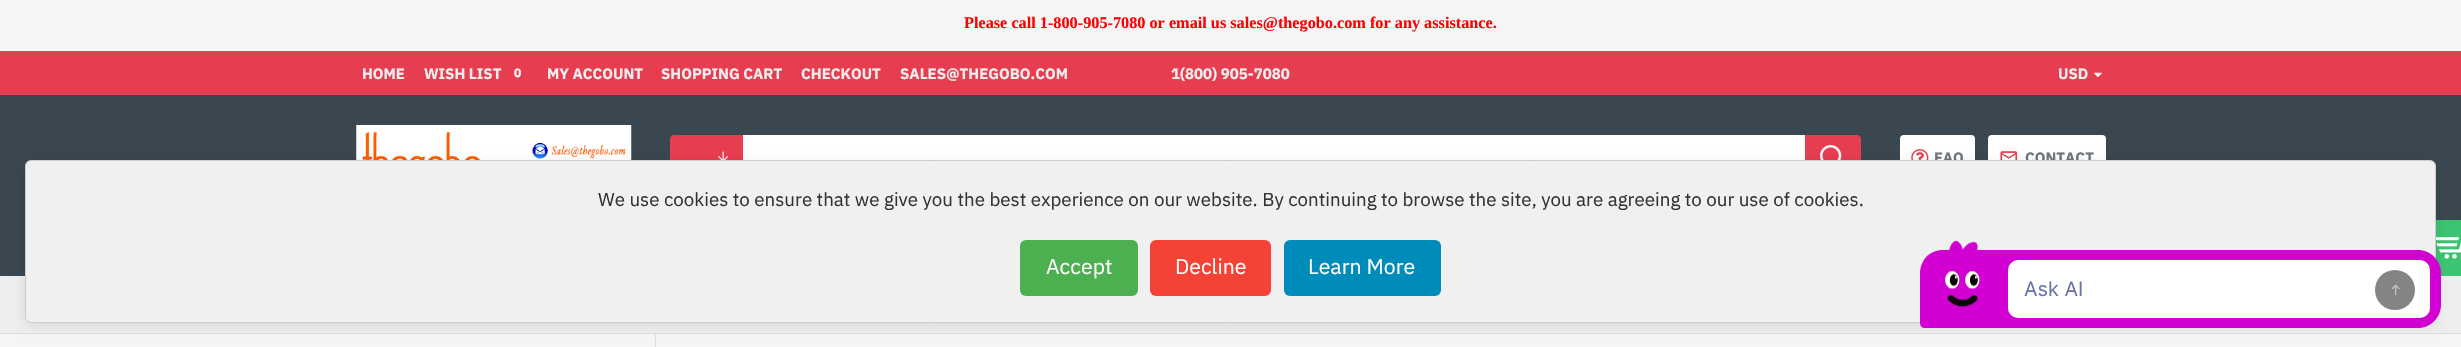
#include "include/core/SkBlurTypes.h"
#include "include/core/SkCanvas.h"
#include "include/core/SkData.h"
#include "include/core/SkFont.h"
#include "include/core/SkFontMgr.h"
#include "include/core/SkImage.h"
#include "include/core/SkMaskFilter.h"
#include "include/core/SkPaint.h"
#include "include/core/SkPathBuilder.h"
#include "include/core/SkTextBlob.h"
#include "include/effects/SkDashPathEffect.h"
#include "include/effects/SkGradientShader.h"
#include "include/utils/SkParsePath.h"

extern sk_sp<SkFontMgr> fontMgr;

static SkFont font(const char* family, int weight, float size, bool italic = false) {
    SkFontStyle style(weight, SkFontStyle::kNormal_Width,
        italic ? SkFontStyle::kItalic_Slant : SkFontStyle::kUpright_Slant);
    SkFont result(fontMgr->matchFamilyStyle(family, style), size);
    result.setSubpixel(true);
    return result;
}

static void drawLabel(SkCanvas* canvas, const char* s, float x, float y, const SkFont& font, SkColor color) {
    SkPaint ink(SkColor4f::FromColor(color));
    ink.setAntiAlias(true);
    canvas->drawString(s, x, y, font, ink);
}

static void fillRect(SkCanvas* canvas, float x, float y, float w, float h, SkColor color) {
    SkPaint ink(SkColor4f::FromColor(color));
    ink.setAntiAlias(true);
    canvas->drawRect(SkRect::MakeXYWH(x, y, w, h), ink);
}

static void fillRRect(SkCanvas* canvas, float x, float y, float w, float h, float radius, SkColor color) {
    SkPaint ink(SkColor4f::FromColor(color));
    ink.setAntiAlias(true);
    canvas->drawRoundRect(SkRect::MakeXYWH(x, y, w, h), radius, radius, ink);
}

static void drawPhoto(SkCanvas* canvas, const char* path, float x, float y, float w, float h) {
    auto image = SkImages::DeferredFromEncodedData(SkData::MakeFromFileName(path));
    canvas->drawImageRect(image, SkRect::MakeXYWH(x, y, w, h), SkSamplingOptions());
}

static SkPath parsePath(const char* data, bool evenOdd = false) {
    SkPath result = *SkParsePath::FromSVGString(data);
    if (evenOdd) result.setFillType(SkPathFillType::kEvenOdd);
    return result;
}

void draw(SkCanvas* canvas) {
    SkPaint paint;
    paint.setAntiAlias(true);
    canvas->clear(0xFFF5F5F5);
    SkFont font1 = font("Liberation Serif", 700, 16.25f);
    drawLabel(canvas, "Please call 1-800-905-7080 or email us sales@thegobo.com for any assistance.", 964, 28, font1, 0xFFFF0000);
    fillRect(canvas, 0, 95, 2461, 181, 0xFF3A4750);
    fillRect(canvas, 0, 51, 2461, 44, 0xFFE73D50);
    SkFont font2 = font("IBM Plex Sans", 700, 15);
    drawLabel(canvas, "HOME", 362, 79, font2, 0xFFEEEEEE);
    drawLabel(canvas, "WISH LIST", 424, 79, font2, 0xFFEEEEEE);
    SkFont font3 = font("IBM Plex Sans", 700, 12);
    drawLabel(canvas, "0", 514, 77, font3, 0xFFFFFFFF);
    drawLabel(canvas, "MY ACCOUNT", 547, 79, font2, 0xFFEEEEEE);
    drawLabel(canvas, "SHOPPING CART", 661, 79, font2, 0xFFEEEEEE);
    drawLabel(canvas, "CHECKOUT", 801, 79, font2, 0xFFEEEEEE);
    drawLabel(canvas, "SALES@THEGOBO.COM", 900, 79, font2, 0xFFEEEEEE);
    drawLabel(canvas, "1(800) 905-7080", 1171, 79, font2, 0xFFEEEEEE);
    drawLabel(canvas, "USD", 2058, 79, font2, 0xFFEEEEEE);
    drawPhoto(canvas, "assets/img1.png", 2094, 72, 8, 6);
    drawPhoto(canvas, "assets/img2.png", 356, 125, 276, 35);
    paint.setColor(0xFFE73D50);
    canvas->drawPath(parsePath("M674 135H743V180H674C672 180 670 178 670 176V139C670 137 672 135 674 135Z"), paint);
    drawPhoto(canvas, "assets/img3.png", 718, 151, 11, 9);
    fillRect(canvas, 743, 135, 1062, 25, 0xFFFFFFFF);
    canvas->drawPath(parsePath("M1805 135H1857C1859 135 1861 137 1861 139V176C1861 178 1859 180 1857 180H1805Z"), paint);
    drawPhoto(canvas, "assets/img4.png", 1820, 145, 22, 15);
    fillRRect(canvas, 1900, 135, 75, 45, 4, 0xFFFFFFFF);
    drawPhoto(canvas, "assets/img5.png", 1911, 149, 18, 11);
    drawLabel(canvas, "FAQ", 1934, 163, font2, 0xFF6D767D);
    fillRRect(canvas, 1988, 135, 118, 45, 4, 0xFFFFFFFF);
    drawPhoto(canvas, "assets/img6.png", 2000, 151, 18, 9);
    drawLabel(canvas, "CONTACT", 2025, 163, font2, 0xFF6D767D);
    fillRect(canvas, 2436, 220, 25, 56, 0xFF3CC472);
    drawPhoto(canvas, "assets/img7.png", 2436, 237, 25, 22);
    fillRect(canvas, 0, 276, 2461, 57, 0xFFEEEEEE);
    fillRect(canvas, 0, 333, 2461, 1, 0xFFDDDDDD);
    fillRect(canvas, 655, 334, 1, 13, 0xFFDDDDDD);
    paint.setColor(0x1A000000);
    paint.setMaskFilter(SkMaskFilter::MakeBlur(kNormal_SkBlurStyle, 6));
    canvas->drawRoundRect(SkRect::MakeXYWH(25, 163, 2411, 162), 6, 6, paint);
    paint.setMaskFilter(nullptr);
    paint.setColor(0xFFF0F0F0);
    canvas->drawRoundRect(SkRect::MakeXYWH(25.5f, 160.5f, 2410, 162), 5.5f, 5.5f, paint);
    paint.setStroke(true);
    paint.setStrokeWidth(1);
    paint.setColor(0xFFCCCCCC);
    canvas->drawRoundRect(SkRect::MakeXYWH(25.5f, 160.5f, 2410, 162), 5.5f, 5.5f, paint);
    SkFont font4 = font("IBM Plex Sans", 400, 18.75f);
    drawLabel(canvas, "We use cookies to ensure that we give you the best experience on our website. By continuing to browse the site, you are agreeing to our use of cookies.", 598, 206, font4, 0xFF333333);
    fillRRect(canvas, 1020, 240, 118, 56, 6, 0xFF4CAF50);
    SkFont font5 = font("IBM Plex Sans", 400, 21.25f);
    drawLabel(canvas, "Accept", 1046, 274, font5, 0xFFFFFFFF);
    fillRRect(canvas, 1150, 240, 121, 56, 6, 0xFFF44336);
    drawLabel(canvas, "Decline", 1175, 274, font5, 0xFFFFFFFF);
    fillRRect(canvas, 1284, 240, 157, 56, 6, 0xFF008CBA);
    drawLabel(canvas, "Learn More", 1308, 274, font5, 0xFFFFFFFF);
    paint.setStroke(false);
    paint.setColor(0xFFD200D3);
    canvas->drawPath(parsePath("M1943 250H2418C2430.5 250 2441 260.5 2441 273V305C2441 317.5 2430.5 328 2418 328H1925C1922 328 1920 326 1920 323V273C1920 260.5 1930.5 250 1943 250Z"), paint);
    drawPhoto(canvas, "assets/img8.png", 1921, 241, 61, 66);
    fillRRect(canvas, 2008, 260, 422, 58, 10, 0xFFFFFFFF);
    SkFont font6 = font("Inter", 400, 20);
    drawLabel(canvas, "Ask AI", 2024, 296, font6, 0xFF6C73A8);
    paint.setColor(0xFF858483);
    canvas->drawCircle(2395, 290, 20, paint);
    drawPhoto(canvas, "assets/img9.png", 2391, 284, 9, 12);
}
